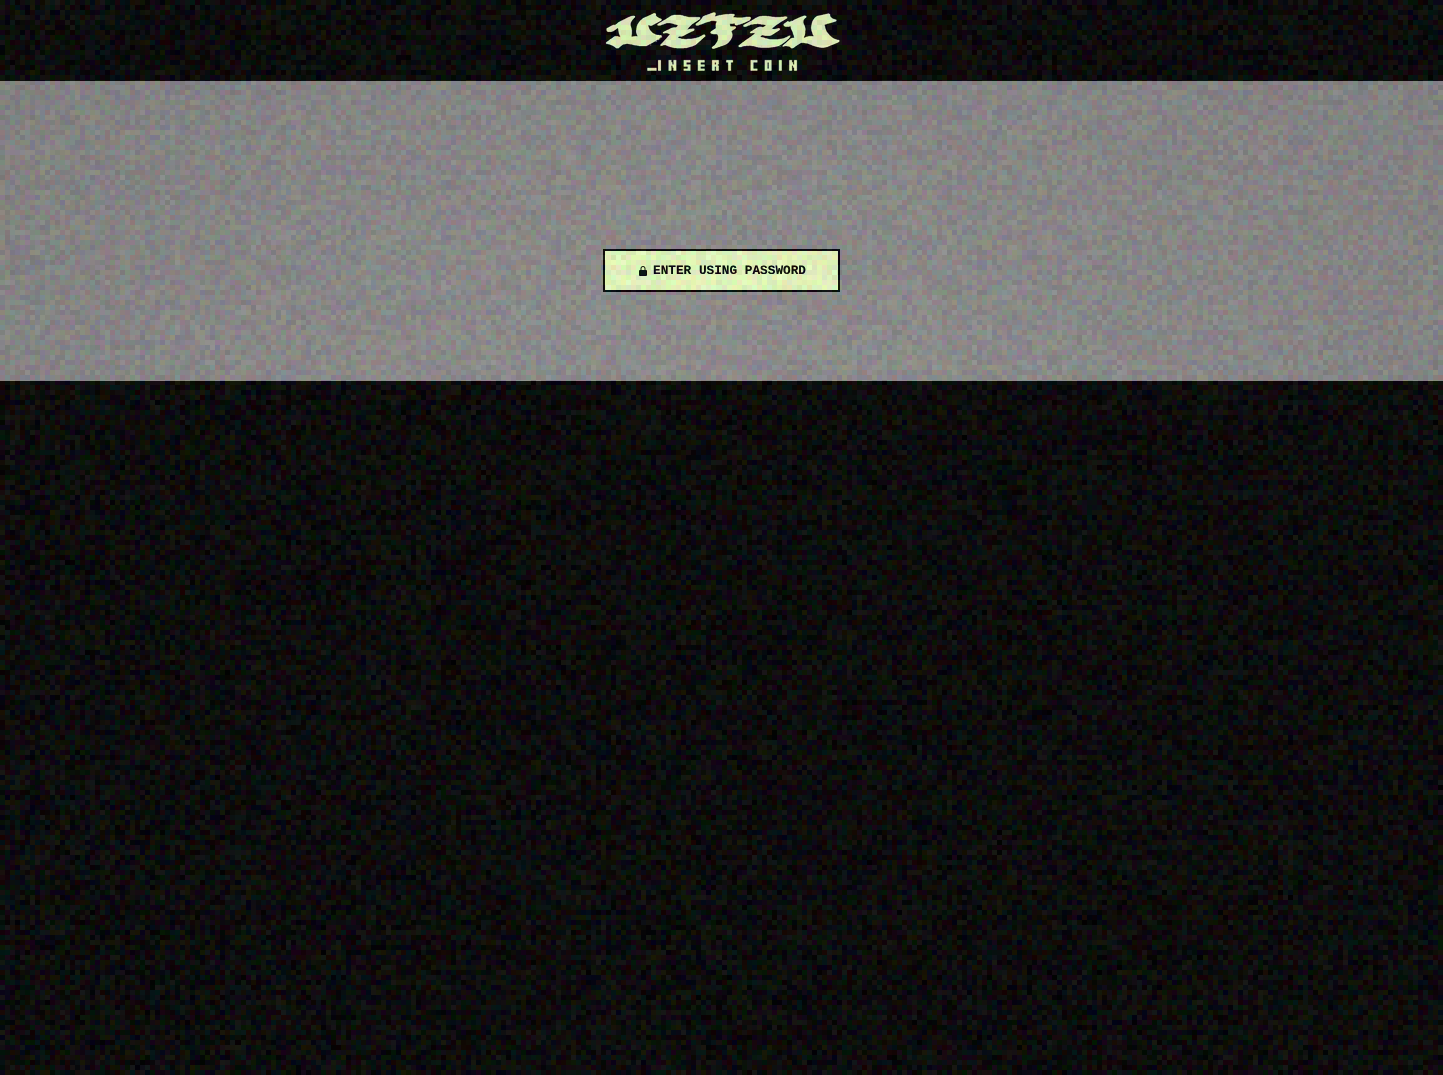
#include "include/core/SkBlurTypes.h"
#include "include/core/SkCanvas.h"
#include "include/core/SkData.h"
#include "include/core/SkFont.h"
#include "include/core/SkFontMgr.h"
#include "include/core/SkImage.h"
#include "include/core/SkMaskFilter.h"
#include "include/core/SkPaint.h"
#include "include/core/SkPathBuilder.h"
#include "include/core/SkTextBlob.h"
#include "include/effects/SkDashPathEffect.h"
#include "include/effects/SkGradientShader.h"
#include "include/utils/SkParsePath.h"

extern sk_sp<SkFontMgr> fontMgr;

static SkFont font(const char* family, int weight, float size, bool italic = false) {
    SkFontStyle style(weight, SkFontStyle::kNormal_Width,
        italic ? SkFontStyle::kItalic_Slant : SkFontStyle::kUpright_Slant);
    SkFont result(fontMgr->matchFamilyStyle(family, style), size);
    result.setSubpixel(true);
    return result;
}

static void drawLabel(SkCanvas* canvas, const char* s, float x, float y, const SkFont& font, SkColor color) {
    SkPaint ink(SkColor4f::FromColor(color));
    ink.setAntiAlias(true);
    canvas->drawString(s, x, y, font, ink);
}

static void fillRect(SkCanvas* canvas, float x, float y, float w, float h, SkColor color) {
    SkPaint ink(SkColor4f::FromColor(color));
    ink.setAntiAlias(true);
    canvas->drawRect(SkRect::MakeXYWH(x, y, w, h), ink);
}

static void drawPhoto(SkCanvas* canvas, const char* path, float x, float y, float w, float h) {
    auto image = SkImages::DeferredFromEncodedData(SkData::MakeFromFileName(path));
    canvas->drawImageRect(image, SkRect::MakeXYWH(x, y, w, h), SkSamplingOptions());
}

void draw(SkCanvas* canvas) {
    SkPaint paint;
    paint.setAntiAlias(true);
    canvas->clear(0xFF000000);
    drawPhoto(canvas, "assets/img2.png", 605, 12, 235, 59);
    fillRect(canvas, 0, 81, 1443, 300, 0xFF8C8B8B);
    paint.setColor(0xFFEAFFC1);
    canvas->drawRect(SkRect::MakeXYWH(604, 250, 235, 41), paint);
    paint.setStroke(true);
    paint.setStrokeWidth(2);
    paint.setColor(0xFF000000);
    canvas->drawRect(SkRect::MakeXYWH(604, 250, 235, 41), paint);
    drawPhoto(canvas, "assets/img3.png", 639, 266, 8, 10);
    SkFont font1 = font("Liberation Mono", 700, 12.75f);
    drawLabel(canvas, "ENTER USING PASSWORD", 653, 274, font1, 0xFF000000);
    drawPhoto(canvas, "assets/img1.png", 0, 0, 1443, 1075);
    paint.setStroke(false);
    {
        const SkColor colors[] = {0x00000000, 0x00000000, 0x14000000};
        const float stops[] = {0, 0.3f, 1};
        SkMatrix m = SkMatrix::Translate(722, 538).preScale(1020, 760);
        paint.setShader(SkGradientShader::MakeRadial({0, 0}, 1, colors, stops, 3, SkTileMode::kClamp, 0, &m));
        paint.setAlpha(255);
    }
    canvas->drawRect(SkRect::MakeXYWH(0, 12, 1443, 369), paint);
}
